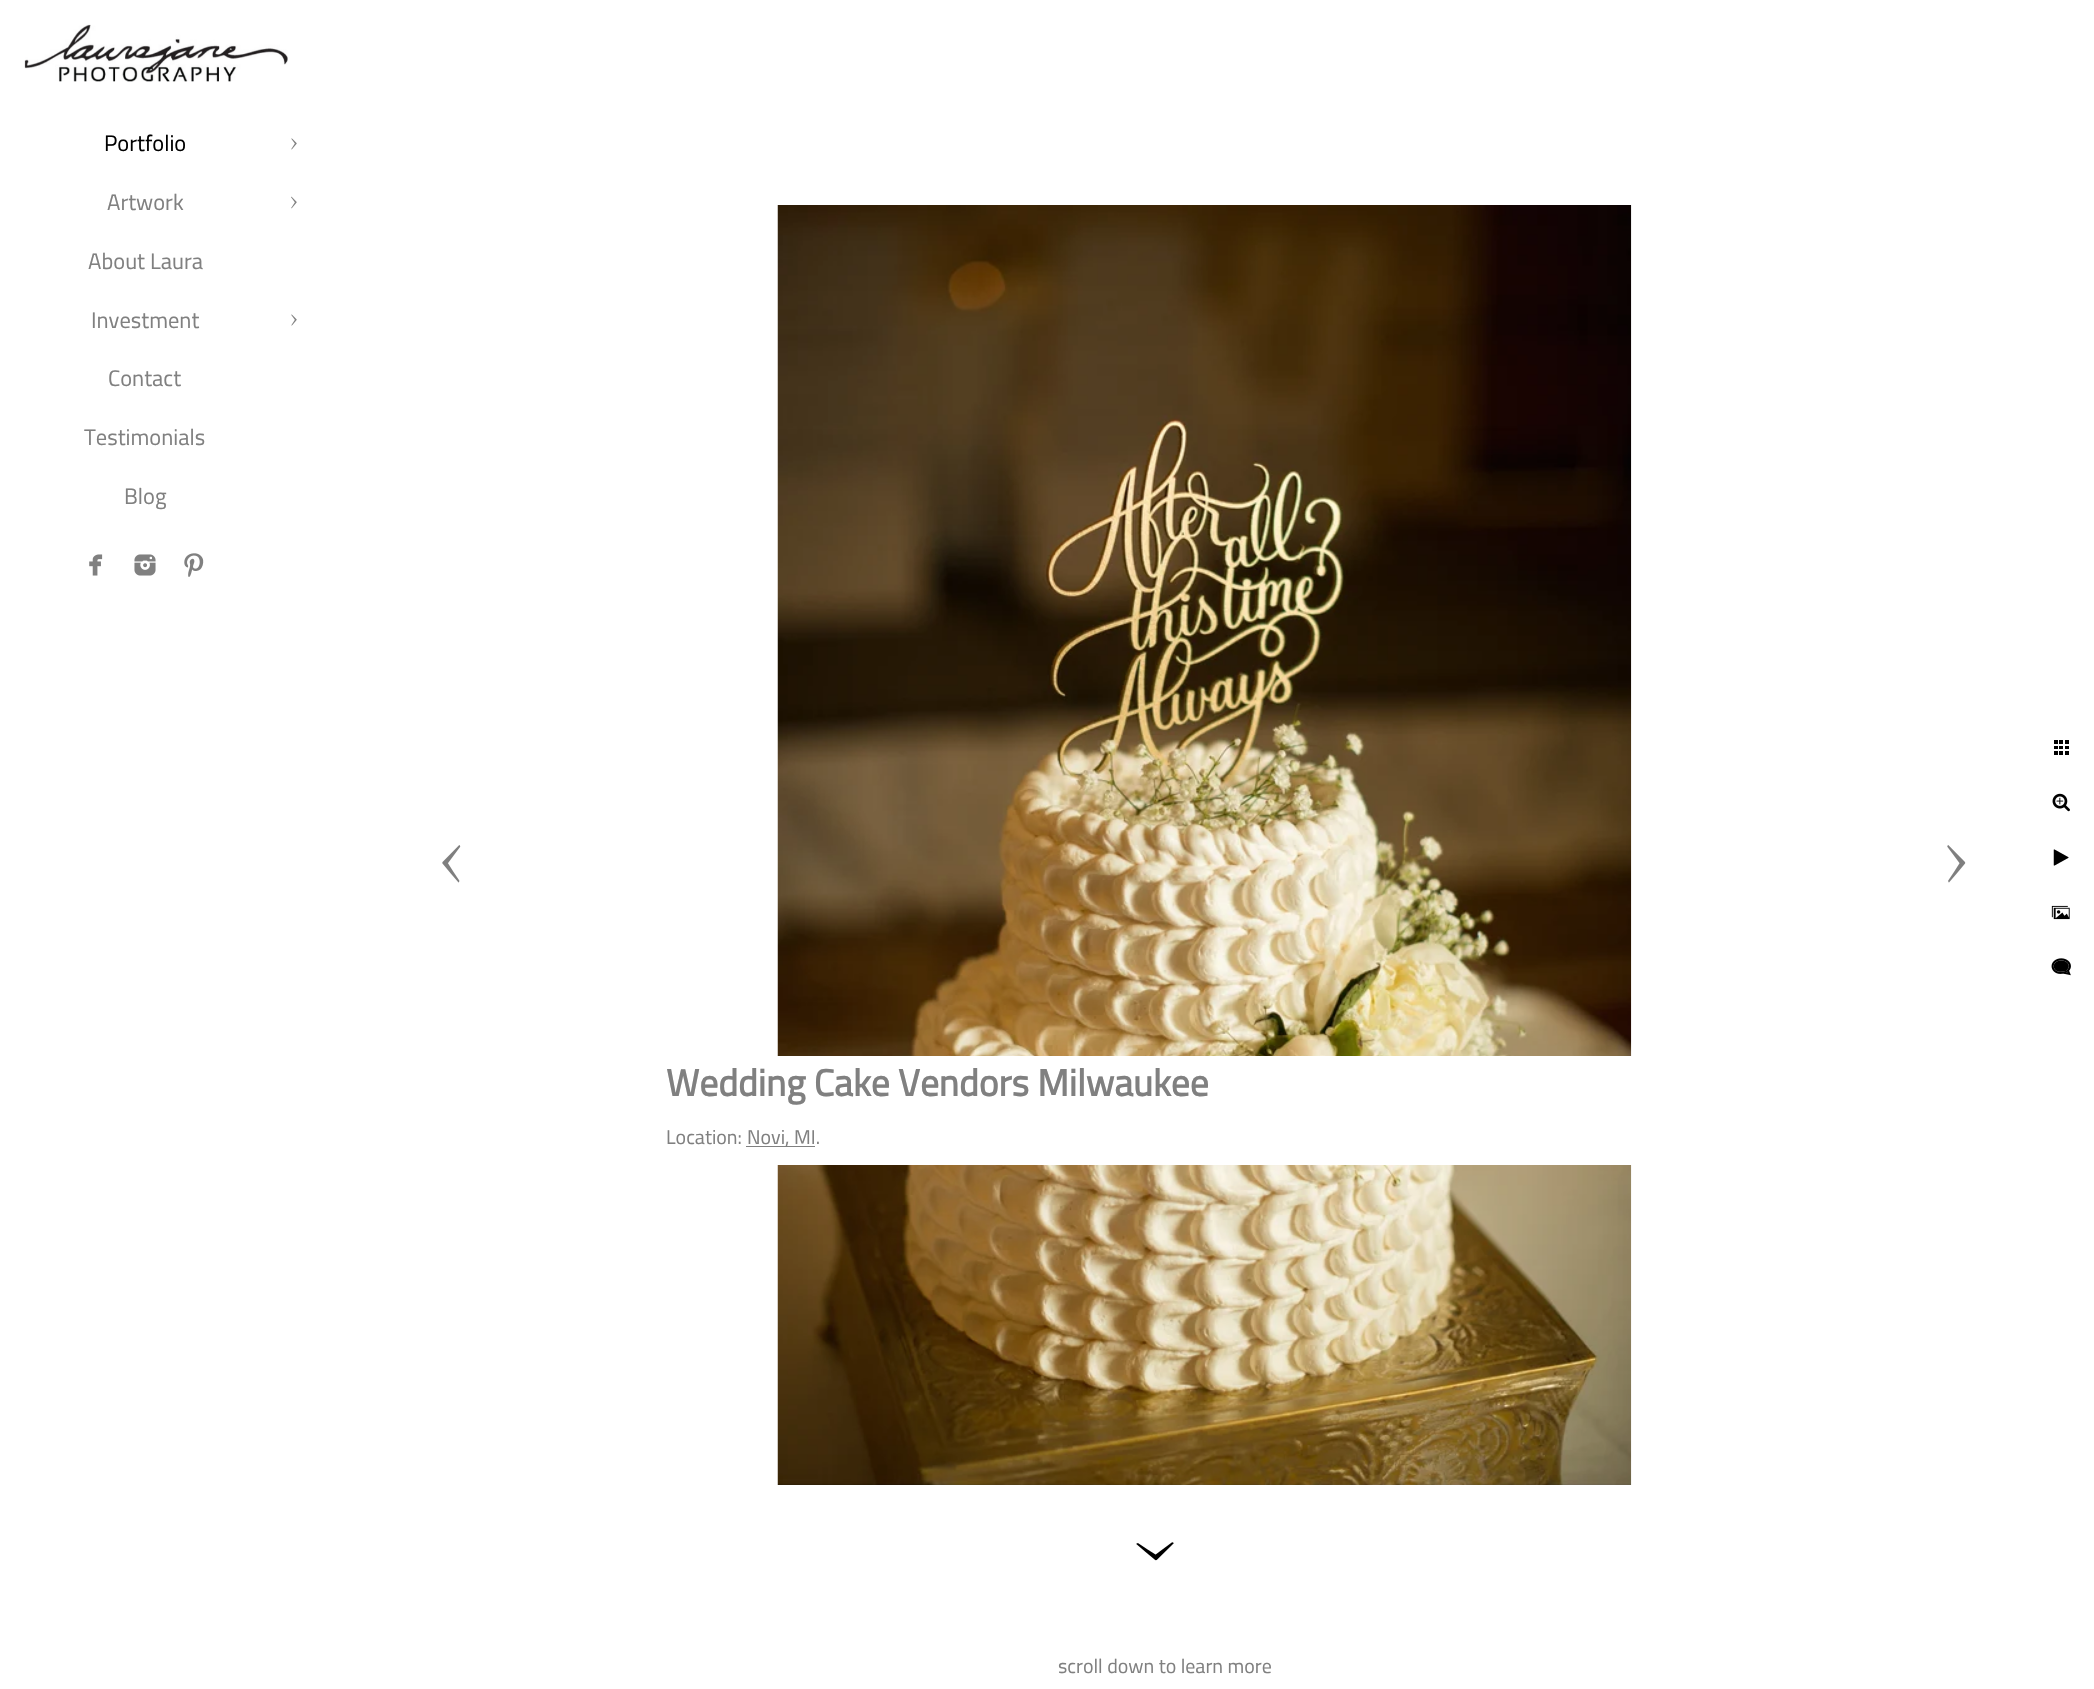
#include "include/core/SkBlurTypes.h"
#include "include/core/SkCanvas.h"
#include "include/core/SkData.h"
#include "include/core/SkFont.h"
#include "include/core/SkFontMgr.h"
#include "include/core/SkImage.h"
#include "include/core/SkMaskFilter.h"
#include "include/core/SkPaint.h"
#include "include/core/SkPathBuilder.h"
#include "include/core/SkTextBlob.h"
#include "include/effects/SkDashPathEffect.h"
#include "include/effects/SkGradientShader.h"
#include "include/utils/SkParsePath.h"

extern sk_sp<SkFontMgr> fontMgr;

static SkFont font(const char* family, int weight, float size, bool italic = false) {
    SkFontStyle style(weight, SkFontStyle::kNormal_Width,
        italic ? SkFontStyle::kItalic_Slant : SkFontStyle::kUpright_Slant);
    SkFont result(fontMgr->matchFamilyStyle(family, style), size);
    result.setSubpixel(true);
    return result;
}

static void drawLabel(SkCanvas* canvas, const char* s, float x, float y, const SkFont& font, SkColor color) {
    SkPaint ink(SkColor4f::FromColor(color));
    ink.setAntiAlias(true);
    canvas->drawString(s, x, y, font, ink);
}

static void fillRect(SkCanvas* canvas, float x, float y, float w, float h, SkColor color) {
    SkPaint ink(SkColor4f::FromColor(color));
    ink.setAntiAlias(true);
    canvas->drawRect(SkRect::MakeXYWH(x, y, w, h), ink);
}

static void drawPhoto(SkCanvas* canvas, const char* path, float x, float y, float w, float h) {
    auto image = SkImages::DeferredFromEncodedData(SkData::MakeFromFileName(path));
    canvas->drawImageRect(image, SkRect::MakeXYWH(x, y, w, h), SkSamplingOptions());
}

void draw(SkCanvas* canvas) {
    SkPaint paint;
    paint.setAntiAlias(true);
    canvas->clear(0xFFFFFFFF);
    drawPhoto(canvas, "assets/img1.png", 24, 24, 264, 58);
    SkFont font1 = font("Titillium Web", 400, 22.5f);
    drawLabel(canvas, "Portfolio", 104, 151, font1, 0xFF000000);
    drawPhoto(canvas, "assets/img2.png", 291, 138, 6, 12);
    drawLabel(canvas, "Artwork", 107, 210, font1, 0xFF808080);
    drawPhoto(canvas, "assets/img3.png", 291, 196, 6, 13);
    drawLabel(canvas, "About Laura", 88, 269, font1, 0xFF808080);
    drawLabel(canvas, "Investment", 91, 328, font1, 0xFF808080);
    drawPhoto(canvas, "assets/img4.png", 291, 314, 6, 12);
    drawLabel(canvas, "Contact", 108, 386, font1, 0xFF808080);
    drawLabel(canvas, "Testimonials", 84, 445, font1, 0xFF808080);
    drawLabel(canvas, "Blog", 124, 504, font1, 0xFF808080);
    drawPhoto(canvas, "assets/img5.png", 89, 554, 14, 22);
    drawPhoto(canvas, "assets/img6.png", 134, 554, 22, 22);
    drawPhoto(canvas, "assets/img7.png", 184, 553, 20, 24);
    drawPhoto(canvas, "assets/img8.png", 2054, 740, 15, 15);
    drawPhoto(canvas, "assets/img9.png", 2052, 793, 18, 19);
    drawPhoto(canvas, "assets/img10.png", 2053, 849, 16, 17);
    drawPhoto(canvas, "assets/img11.png", 2051, 905, 19, 15);
    drawPhoto(canvas, "assets/img12.png", 2051, 958, 20, 18);
    drawPhoto(canvas, "assets/img14.png", 777, 205, 855, 1280);
    fillRect(canvas, 777, 1056, 855, 109, 0xFFFFFFFF);
    SkFont font2 = font("Titillium Web", 700, 37.5f);
    drawLabel(canvas, "Wedding Cake Vendors Milwaukee", 666, 1096, font2, 0xFF808080);
    SkFont font3 = font("Titillium Web", 400, 20);
    drawLabel(canvas, "Location:", 666, 1144, font3, 0xFF808080);
    fillRect(canvas, 746, 1146, 69, 1, 0xFF808080);
    drawLabel(canvas, "Novi, MI.", 747, 1144, font3, 0xFF808080);
    drawPhoto(canvas, "assets/img13.png", 442, 845, 19, 38);
    drawPhoto(canvas, "assets/img15.png", 1947, 845, 19, 38);
    drawPhoto(canvas, "assets/img16.png", 1136, 1542, 38, 19);
    drawLabel(canvas, "scroll down to learn more", 1058, 1673, font3, 0xFF808080);
}
